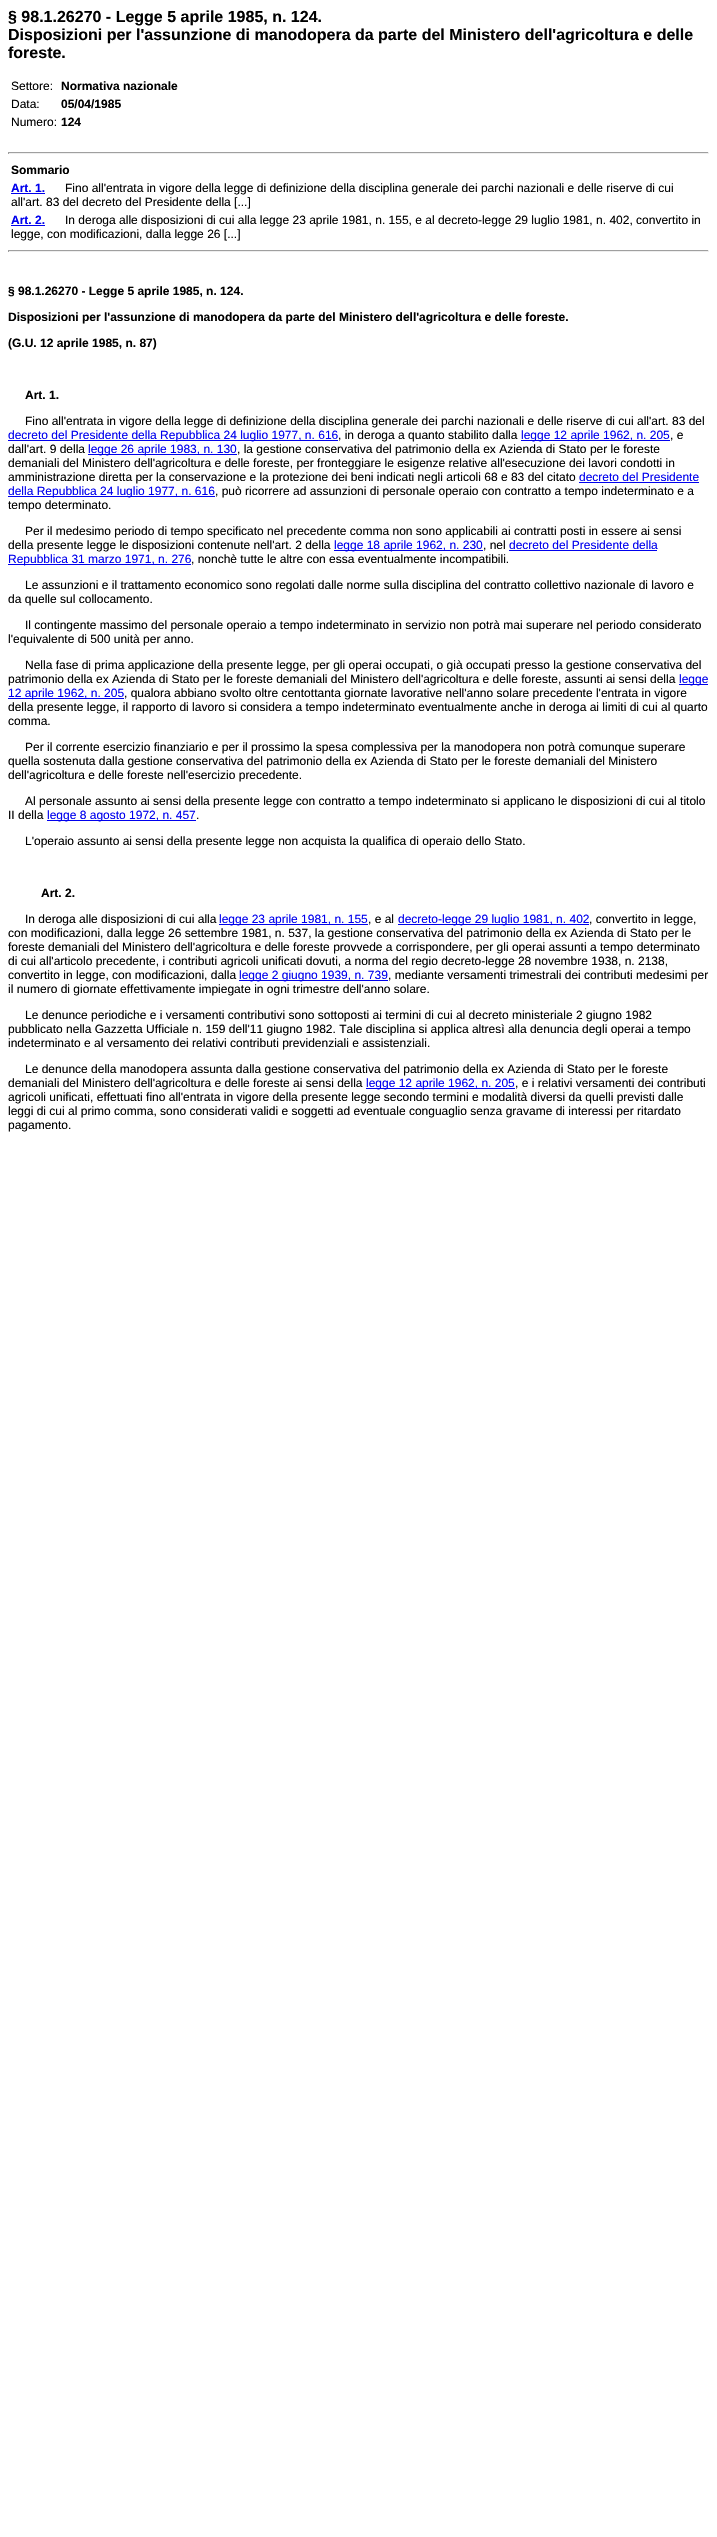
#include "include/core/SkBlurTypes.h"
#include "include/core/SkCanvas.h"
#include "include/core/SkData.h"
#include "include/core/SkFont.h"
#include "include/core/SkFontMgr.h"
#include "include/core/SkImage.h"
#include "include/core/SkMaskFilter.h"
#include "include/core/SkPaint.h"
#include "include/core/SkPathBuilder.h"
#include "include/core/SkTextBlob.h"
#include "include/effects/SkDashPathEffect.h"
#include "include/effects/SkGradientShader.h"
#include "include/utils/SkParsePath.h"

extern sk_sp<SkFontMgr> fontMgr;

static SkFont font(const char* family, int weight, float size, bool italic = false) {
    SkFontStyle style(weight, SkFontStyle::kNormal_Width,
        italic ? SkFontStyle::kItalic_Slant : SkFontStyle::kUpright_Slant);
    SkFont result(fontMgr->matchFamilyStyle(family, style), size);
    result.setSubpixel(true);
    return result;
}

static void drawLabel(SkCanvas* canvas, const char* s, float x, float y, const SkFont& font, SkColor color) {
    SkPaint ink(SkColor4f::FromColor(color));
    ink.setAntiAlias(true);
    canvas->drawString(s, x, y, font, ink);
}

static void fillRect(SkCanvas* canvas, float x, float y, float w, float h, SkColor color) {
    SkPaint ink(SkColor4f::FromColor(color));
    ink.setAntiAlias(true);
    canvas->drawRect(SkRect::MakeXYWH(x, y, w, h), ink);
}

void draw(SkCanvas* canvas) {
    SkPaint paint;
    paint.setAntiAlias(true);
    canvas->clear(0xFFFFFFFF);
    SkFont font1 = font("Liberation Sans", 700, 16);
    drawLabel(canvas, "§ 98.1.26270 - Legge 5 aprile 1985, n. 124.", 8, 22, font1, 0xFF000000);
    drawLabel(canvas, "Disposizioni per l'assunzione di manodopera da parte del Ministero dell'agricoltura e delle", 8, 40, font1, 0xFF000000);
    drawLabel(canvas, "foreste.", 8, 58, font1, 0xFF000000);
    SkFont font2 = font("Liberation Sans", 400, 12);
    drawLabel(canvas, "Settore:", 11, 90, font2, 0xFF000000);
    SkFont font3 = font("Liberation Sans", 700, 12);
    drawLabel(canvas, "Normativa nazionale", 61, 90, font3, 0xFF000000);
    drawLabel(canvas, "Data:", 11, 108, font2, 0xFF000000);
    drawLabel(canvas, "05/04/1985", 61, 108, font3, 0xFF000000);
    drawLabel(canvas, "Numero:", 11, 126, font2, 0xFF000000);
    drawLabel(canvas, "124", 61, 126, font3, 0xFF000000);
    fillRect(canvas, 8, 152, 701, 1, 0xFF9F9F9F);
    fillRect(canvas, 708, 152, 1, 2, 0xFFEEEEEE);
    fillRect(canvas, 8, 153, 701, 1, 0xFFEEEEEE);
    fillRect(canvas, 8, 152, 1, 2, 0xFF9F9F9F);
    drawLabel(canvas, "Sommario", 11, 174, font3, 0xFF000000);
    drawLabel(canvas, "Art. 1.", 11, 192, font3, 0xFF0000EE);
    fillRect(canvas, 11, 193, 34, 1, 0xFF0000EE);
    drawLabel(canvas, "Fino all'entrata in vigore della legge di definizione della disciplina generale dei parchi nazionali e delle riserve di cui", 65, 192, font2, 0xFF000000);
    drawLabel(canvas, "all'art. 83 del decreto del Presidente della [...]", 11, 206, font2, 0xFF000000);
    drawLabel(canvas, "Art. 2.", 11, 224, font3, 0xFF0000EE);
    fillRect(canvas, 11, 225, 34, 1, 0xFF0000EE);
    drawLabel(canvas, "In deroga alle disposizioni di cui alla legge 23 aprile 1981, n. 155, e al decreto-legge 29 luglio 1981, n. 402, convertito in", 65, 224, font2, 0xFF000000);
    drawLabel(canvas, "legge, con modificazioni, dalla legge 26 [...]", 11, 238, font2, 0xFF000000);
    fillRect(canvas, 8, 250, 701, 1, 0xFF9F9F9F);
    fillRect(canvas, 708, 250, 1, 2, 0xFFEEEEEE);
    fillRect(canvas, 8, 251, 701, 1, 0xFFEEEEEE);
    fillRect(canvas, 8, 250, 1, 2, 0xFF9F9F9F);
    drawLabel(canvas, "§ 98.1.26270 - Legge 5 aprile 1985, n. 124.", 8, 295, font3, 0xFF000000);
    drawLabel(canvas, "Disposizioni per l'assunzione di manodopera da parte del Ministero dell'agricoltura e delle foreste.", 8, 321, font3, 0xFF000000);
    drawLabel(canvas, "(G.U. 12 aprile 1985, n. 87)", 8, 347, font3, 0xFF000000);
    drawLabel(canvas, "Art. 1.", 25, 399, font3, 0xFF000000);
    drawLabel(canvas, "Fino all'entrata in vigore della legge di definizione della disciplina generale dei parchi nazionali e delle riserve di cui all'art. 83 del", 25, 425, font2, 0xFF000000);
    fillRect(canvas, 8, 440, 330, 1, 0xFF0000EE);
    drawLabel(canvas, "decreto del Presidente della Repubblica 24 luglio 1977, n. 616", 8, 439, font2, 0xFF0000EE);
    drawLabel(canvas, ", in deroga a quanto stabilito dalla", 338, 439, font2, 0xFF000000);
    fillRect(canvas, 521, 440, 149, 1, 0xFF0000EE);
    drawLabel(canvas, "legge 12 aprile 1962, n. 205", 521, 439, font2, 0xFF0000EE);
    drawLabel(canvas, ", e", 670, 439, font2, 0xFF000000);
    drawLabel(canvas, "dall'art. 9 della", 8, 453, font2, 0xFF000000);
    fillRect(canvas, 88, 454, 149, 1, 0xFF0000EE);
    drawLabel(canvas, "legge 26 aprile 1983, n. 130", 88, 453, font2, 0xFF0000EE);
    drawLabel(canvas, ", la gestione conservativa del patrimonio della ex Azienda di Stato per le foreste", 237, 453, font2, 0xFF000000);
    drawLabel(canvas, "demaniali del Ministero dell'agricoltura e delle foreste, per fronteggiare le esigenze relative all'esecuzione dei lavori condotti in", 8, 467, font2, 0xFF000000);
    drawLabel(canvas, "amministrazione diretta per la conservazione e la protezione dei beni indicati negli articoli 68 e 83 del citato", 8, 481, font2, 0xFF000000);
    drawLabel(canvas, "decreto del Presidente", 579, 481, font2, 0xFF0000EE);
    fillRect(canvas, 579, 482, 120, 1, 0xFF0000EE);
    fillRect(canvas, 8, 496, 207, 1, 0xFF0000EE);
    drawLabel(canvas, "della Repubblica 24 luglio 1977, n. 616", 8, 495, font2, 0xFF0000EE);
    drawLabel(canvas, ", può ricorrere ad assunzioni di personale operaio con contratto a tempo indeterminato e a", 215, 495, font2, 0xFF000000);
    drawLabel(canvas, "tempo determinato.", 8, 509, font2, 0xFF000000);
    drawLabel(canvas, "Per il medesimo periodo di tempo specificato nel precedente comma non sono applicabili ai contratti posti in essere ai sensi", 25, 535, font2, 0xFF000000);
    drawLabel(canvas, "della presente legge le disposizioni contenute nell'art. 2 della", 8, 549, font2, 0xFF000000);
    fillRect(canvas, 334, 550, 149, 1, 0xFF0000EE);
    drawLabel(canvas, "legge 18 aprile 1962, n. 230", 334, 549, font2, 0xFF0000EE);
    drawLabel(canvas, ", nel", 483, 549, font2, 0xFF000000);
    drawLabel(canvas, "decreto del Presidente della", 509, 549, font2, 0xFF0000EE);
    fillRect(canvas, 509, 550, 148, 1, 0xFF0000EE);
    fillRect(canvas, 8, 564, 183, 1, 0xFF0000EE);
    drawLabel(canvas, "Repubblica 31 marzo 1971, n. 276", 8, 563, font2, 0xFF0000EE);
    drawLabel(canvas, ", nonchè tutte le altre con essa eventualmente incompatibili.", 191, 563, font2, 0xFF000000);
    drawLabel(canvas, "Le assunzioni e il trattamento economico sono regolati dalle norme sulla disciplina del contratto collettivo nazionale di lavoro e", 25, 589, font2, 0xFF000000);
    drawLabel(canvas, "da quelle sul collocamento.", 8, 603, font2, 0xFF000000);
    drawLabel(canvas, "Il contingente massimo del personale operaio a tempo indeterminato in servizio non potrà mai superare nel periodo considerato", 25, 629, font2, 0xFF000000);
    drawLabel(canvas, "l'equivalente di 500 unità per anno.", 8, 643, font2, 0xFF000000);
    drawLabel(canvas, "Nella fase di prima applicazione della presente legge, per gli operai occupati, o già occupati presso la gestione conservativa del", 25, 669, font2, 0xFF000000);
    drawLabel(canvas, "patrimonio della ex Azienda di Stato per le foreste demaniali del Ministero dell'agricoltura e delle foreste, assunti ai sensi della", 8, 683, font2, 0xFF000000);
    fillRect(canvas, 679, 684, 29, 1, 0xFF0000EE);
    drawLabel(canvas, "legge", 679, 683, font2, 0xFF0000EE);
    fillRect(canvas, 8, 698, 116, 1, 0xFF0000EE);
    drawLabel(canvas, "12 aprile 1962, n. 205", 8, 697, font2, 0xFF0000EE);
    drawLabel(canvas, ", qualora abbiano svolto oltre centottanta giornate lavorative nell'anno solare precedente l'entrata in vigore", 124, 697, font2, 0xFF000000);
    drawLabel(canvas, "della presente legge, il rapporto di lavoro si considera a tempo indeterminato eventualmente anche in deroga ai limiti di cui al quarto", 8, 711, font2, 0xFF000000);
    drawLabel(canvas, "comma.", 8, 725, font2, 0xFF000000);
    drawLabel(canvas, "Per il corrente esercizio finanziario e per il prossimo la spesa complessiva per la manodopera non potrà comunque superare", 25, 751, font2, 0xFF000000);
    drawLabel(canvas, "quella sostenuta dalla gestione conservativa del patrimonio della ex Azienda di Stato per le foreste demaniali del Ministero", 8, 765, font2, 0xFF000000);
    drawLabel(canvas, "dell'agricoltura e delle foreste nell'esercizio precedente.", 8, 779, font2, 0xFF000000);
    drawLabel(canvas, "Al personale assunto ai sensi della presente legge con contratto a tempo indeterminato si applicano le disposizioni di cui al titolo", 25, 805, font2, 0xFF000000);
    drawLabel(canvas, "II della", 8, 819, font2, 0xFF000000);
    fillRect(canvas, 47, 820, 149, 1, 0xFF0000EE);
    drawLabel(canvas, "legge 8 agosto 1972, n. 457", 47, 819, font2, 0xFF0000EE);
    drawLabel(canvas, ".", 196, 819, font2, 0xFF000000);
    drawLabel(canvas, "L'operaio assunto ai sensi della presente legge non acquista la qualifica di operaio dello Stato.", 25, 845, font2, 0xFF000000);
    drawLabel(canvas, "Art. 2.", 41, 897, font3, 0xFF000000);
    drawLabel(canvas, "In deroga alle disposizioni di cui alla", 25, 923, font2, 0xFF000000);
    fillRect(canvas, 219, 924, 149, 1, 0xFF0000EE);
    drawLabel(canvas, "legge 23 aprile 1981, n. 155", 219, 923, font2, 0xFF0000EE);
    drawLabel(canvas, ", e al", 368, 923, font2, 0xFF000000);
    fillRect(canvas, 398, 924, 191, 1, 0xFF0000EE);
    drawLabel(canvas, "decreto-legge 29 luglio 1981, n. 402", 398, 923, font2, 0xFF0000EE);
    drawLabel(canvas, ", convertito in legge,", 589, 923, font2, 0xFF000000);
    drawLabel(canvas, "con modificazioni, dalla legge 26 settembre 1981, n. 537, la gestione conservativa del patrimonio della ex Azienda di Stato per le", 8, 937, font2, 0xFF000000);
    drawLabel(canvas, "foreste demaniali del Ministero dell'agricoltura e delle foreste provvede a corrispondere, per gli operai assunti a tempo determinato", 8, 951, font2, 0xFF000000);
    drawLabel(canvas, "di cui all'articolo precedente, i contributi agricoli unificati dovuti, a norma del regio decreto-legge 28 novembre 1938, n. 2138,", 8, 965, font2, 0xFF000000);
    drawLabel(canvas, "convertito in legge, con modificazioni, dalla", 8, 979, font2, 0xFF000000);
    fillRect(canvas, 239, 980, 149, 1, 0xFF0000EE);
    drawLabel(canvas, "legge 2 giugno 1939, n. 739", 239, 979, font2, 0xFF0000EE);
    drawLabel(canvas, ", mediante versamenti trimestrali dei contributi medesimi per", 388, 979, font2, 0xFF000000);
    drawLabel(canvas, "il numero di giornate effettivamente impiegate in ogni trimestre dell'anno solare.", 8, 993, font2, 0xFF000000);
    drawLabel(canvas, "Le denunce periodiche e i versamenti contributivi sono sottoposti ai termini di cui al decreto ministeriale 2 giugno 1982", 25, 1019, font2, 0xFF000000);
    drawLabel(canvas, "pubblicato nella Gazzetta Ufficiale n. 159 dell'11 giugno 1982. Tale disciplina si applica altresì alla denuncia degli operai a tempo", 8, 1033, font2, 0xFF000000);
    drawLabel(canvas, "indeterminato e al versamento dei relativi contributi previdenziali e assistenziali.", 8, 1047, font2, 0xFF000000);
    drawLabel(canvas, "Le denunce della manodopera assunta dalla gestione conservativa del patrimonio della ex Azienda di Stato per le foreste", 25, 1073, font2, 0xFF000000);
    drawLabel(canvas, "demaniali del Ministero dell'agricoltura e delle foreste ai sensi della", 8, 1087, font2, 0xFF000000);
    fillRect(canvas, 366, 1088, 149, 1, 0xFF0000EE);
    drawLabel(canvas, "legge 12 aprile 1962, n. 205", 366, 1087, font2, 0xFF0000EE);
    drawLabel(canvas, ", e i relativi versamenti dei contributi", 515, 1087, font2, 0xFF000000);
    drawLabel(canvas, "agricoli unificati, effettuati fino all'entrata in vigore della presente legge secondo termini e modalità diversi da quelli previsti dalle", 8, 1101, font2, 0xFF000000);
    drawLabel(canvas, "leggi di cui al primo comma, sono considerati validi e soggetti ad eventuale conguaglio senza gravame di interessi per ritardato", 8, 1115, font2, 0xFF000000);
    drawLabel(canvas, "pagamento.", 8, 1129, font2, 0xFF000000);
}
